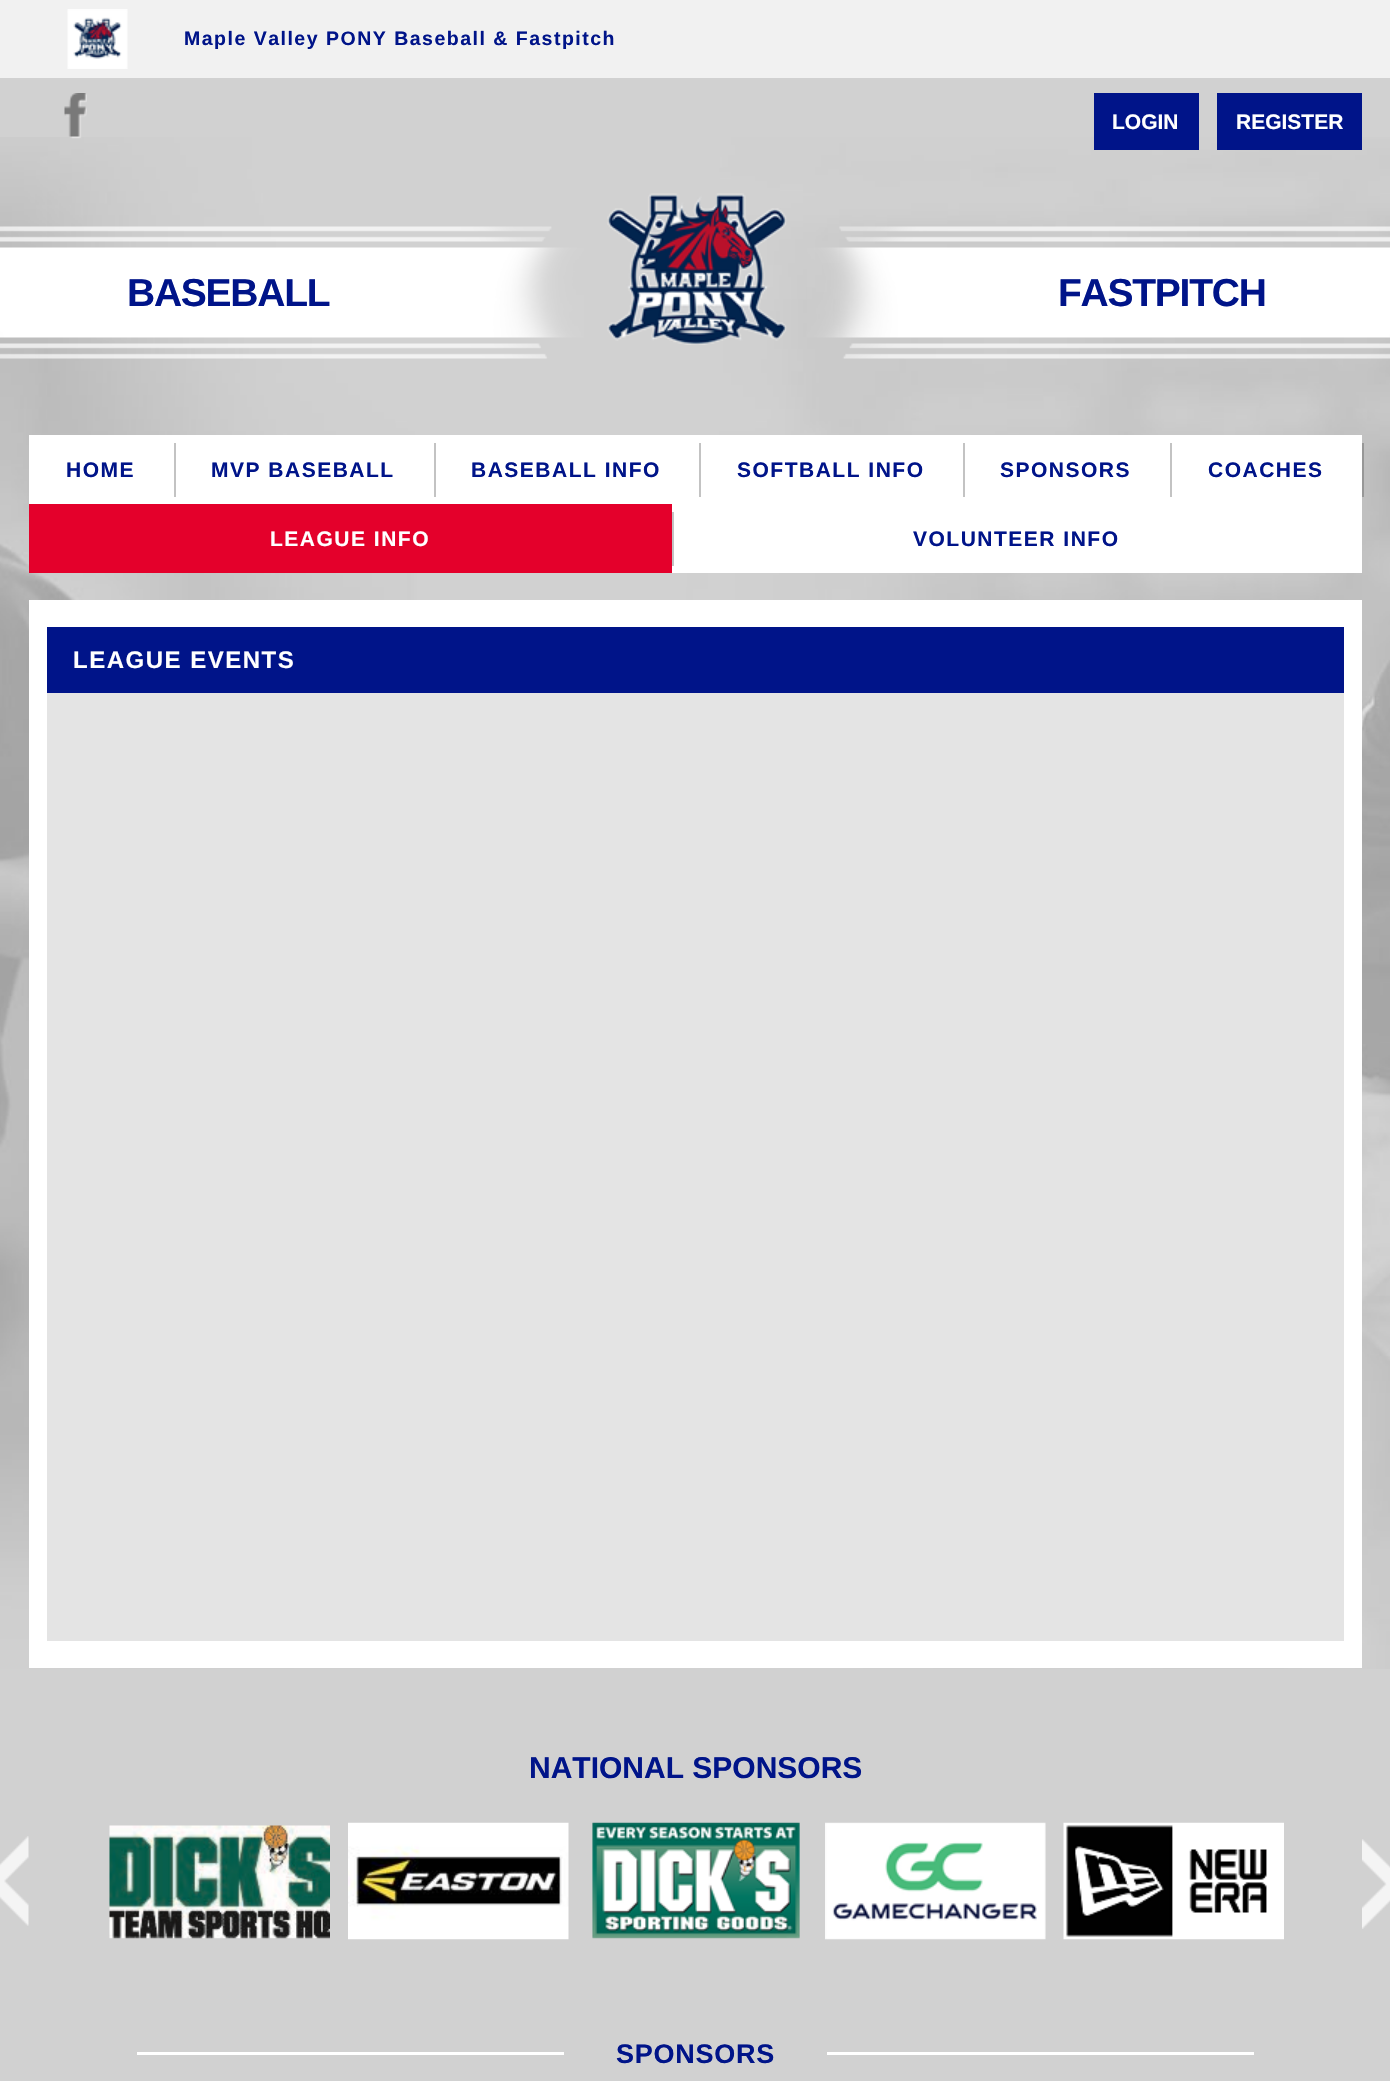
#include "include/core/SkBlurTypes.h"
#include "include/core/SkCanvas.h"
#include "include/core/SkData.h"
#include "include/core/SkFont.h"
#include "include/core/SkFontMgr.h"
#include "include/core/SkImage.h"
#include "include/core/SkMaskFilter.h"
#include "include/core/SkPaint.h"
#include "include/core/SkPathBuilder.h"
#include "include/core/SkTextBlob.h"
#include "include/effects/SkDashPathEffect.h"
#include "include/effects/SkGradientShader.h"
#include "include/utils/SkParsePath.h"

extern sk_sp<SkFontMgr> fontMgr;

static SkFont font(const char* family, int weight, float size, bool italic = false) {
    SkFontStyle style(weight, SkFontStyle::kNormal_Width,
        italic ? SkFontStyle::kItalic_Slant : SkFontStyle::kUpright_Slant);
    SkFont result(fontMgr->matchFamilyStyle(family, style), size);
    result.setSubpixel(true);
    return result;
}

static void drawLabel(SkCanvas* canvas, const char* s, float x, float y, const SkFont& font, SkColor color) {
    SkPaint ink(SkColor4f::FromColor(color));
    ink.setAntiAlias(true);
    canvas->drawString(s, x, y, font, ink);
}

static void drawTracked(SkCanvas* canvas, const char* s, float x, float y, const SkFont& font, const SkPaint& ink, float letter, float word) {
    std::vector<SkGlyphID> glyphs(font.countText(s, strlen(s), SkTextEncoding::kUTF8));
    std::vector<float> xs(glyphs.size());
    font.textToGlyphs(s, strlen(s), SkTextEncoding::kUTF8, glyphs);
    font.getXPos(glyphs, xs, x);
    float extra = 0;
    for (size_t i = 0; i < glyphs.size(); i++) {
        xs[i] += extra;
        extra += letter + word * (glyphs[i] == font.unicharToGlyph(' '));
    }
    canvas->drawTextBlob(SkTextBlob::MakeFromPosHGlyphs(glyphs, xs, y, font), 0, 0, ink);
}

static void fillRect(SkCanvas* canvas, float x, float y, float w, float h, SkColor color) {
    SkPaint ink(SkColor4f::FromColor(color));
    ink.setAntiAlias(true);
    canvas->drawRect(SkRect::MakeXYWH(x, y, w, h), ink);
}

static void drawPhoto(SkCanvas* canvas, const char* path, float x, float y, float w, float h) {
    auto image = SkImages::DeferredFromEncodedData(SkData::MakeFromFileName(path));
    canvas->drawImageRect(image, SkRect::MakeXYWH(x, y, w, h), SkSamplingOptions());
}

void draw(SkCanvas* canvas) {
    SkPaint paint;
    paint.setAntiAlias(true);
    canvas->clear(0xFFD1D1D1);
    drawPhoto(canvas, "assets/img1.png", 0, 137, 1390, 1532);
    fillRect(canvas, 0, 0, 1390, 78, 0xFFF1F1F1);
    drawPhoto(canvas, "assets/img2.png", 67, 9, 61, 60);
    SkFont font1 = font("Liberation Sans", 700, 19.5f);
    paint.setColor(0xFF001489);
    drawTracked(canvas, "Maple Valley PONY Baseball & Fastpitch", 184, 45, font1, paint, 1.5f, 0);
    drawPhoto(canvas, "assets/img3.png", 64, 93, 23, 46);
    fillRect(canvas, 1094, 93, 105, 57, 0xFF001489);
    SkFont font2 = font("Liberation Sans", 700, 21);
    drawLabel(canvas, "LOGIN", 1112, 129, font2, 0xFFFFFFFF);
    fillRect(canvas, 1217, 93, 145, 57, 0xFF001489);
    drawLabel(canvas, "REGISTER", 1236, 129, font2, 0xFFFFFFFF);
    drawPhoto(canvas, "assets/img4.png", 0, 226, 1390, 133);
    drawPhoto(canvas, "assets/img5.png", 607, 193, 180, 152);
    SkFont font3 = font("Liberation Sans", 700, 39);
    drawTracked(canvas, "BASEBALL", 127, 306, font3, paint, -1.25f, 0);
    drawTracked(canvas, "FASTPITCH", 1058, 306, font3, paint, -1.25f, 0);
    fillRect(canvas, 29, 435, 1333, 138, 0xFFFFFFFF);
    drawTracked(canvas, "HOME", 66, 477, font2, paint, 1.5f, 0);
    fillRect(canvas, 174, 443, 2, 54, 0xFFC3C3C3);
    drawTracked(canvas, "MVP BASEBALL", 211, 477, font2, paint, 1.5f, 0);
    fillRect(canvas, 434, 443, 2, 54, 0xFFC3C3C3);
    drawTracked(canvas, "BASEBALL INFO", 471, 477, font2, paint, 1.5f, 0);
    fillRect(canvas, 699, 443, 2, 54, 0xFFC3C3C3);
    drawTracked(canvas, "SOFTBALL INFO", 737, 477, font2, paint, 1.5f, 0);
    fillRect(canvas, 963, 443, 2, 54, 0xFFC3C3C3);
    drawTracked(canvas, "SPONSORS", 1000, 477, font2, paint, 1.5f, 0);
    fillRect(canvas, 1170, 443, 2, 54, 0xFFC3C3C3);
    drawTracked(canvas, "COACHES", 1208, 477, font2, paint, 1.5f, 0);
    fillRect(canvas, 1362, 443, 2, 54, 0xFF979797);
    fillRect(canvas, 29, 504, 643, 69, 0xFFE4002B);
    paint.setColor(0xFFFFFFFF);
    drawTracked(canvas, "LEAGUE INFO", 270, 546, font2, paint, 1.5f, 0);
    fillRect(canvas, 672, 512, 2, 54, 0xFFC3C3C3);
    paint.setColor(0xFF001489);
    drawTracked(canvas, "VOLUNTEER INFO", 913, 546, font2, paint, 1.5f, 0);
    fillRect(canvas, 29, 600, 1333, 1068, 0xFFFFFFFF);
    fillRect(canvas, 47, 627, 1297, 66, 0xFF001489);
    SkFont font4 = font("Liberation Sans", 700, 24);
    paint.setColor(0xFFFFFFFF);
    drawTracked(canvas, "LEAGUE EVENTS", 73, 668, font4, paint, 1.5f, 0);
    fillRect(canvas, 47, 693, 1297, 948, 0xFFE4E4E4);
    SkFont font5 = font("Liberation Sans", 700, 30);
    drawLabel(canvas, "NATIONAL SPONSORS", 529, 1778, font5, 0xFF001489);
    drawPhoto(canvas, "assets/img6.png", 0, 1836, 29, 90);
    drawPhoto(canvas, "assets/img7.png", 109, 1825, 221, 114);
    drawPhoto(canvas, "assets/img8.png", 348, 1822, 221, 118);
    drawPhoto(canvas, "assets/img9.png", 592, 1822, 208, 117);
    drawPhoto(canvas, "assets/img10.png", 825, 1822, 221, 118);
    drawPhoto(canvas, "assets/img11.png", 1063, 1822, 221, 118);
    drawPhoto(canvas, "assets/img12.png", 1362, 1839, 28, 90);
    fillRect(canvas, 137, 2052, 427, 3, 0xFFFFFFFF);
    SkFont font6 = font("Liberation Sans", 700, 27);
    paint.setColor(0xFF001489);
    drawTracked(canvas, "SPONSORS", 616, 2063, font6, paint, 0.75f, 0);
    fillRect(canvas, 827, 2052, 427, 3, 0xFFFFFFFF);
}
